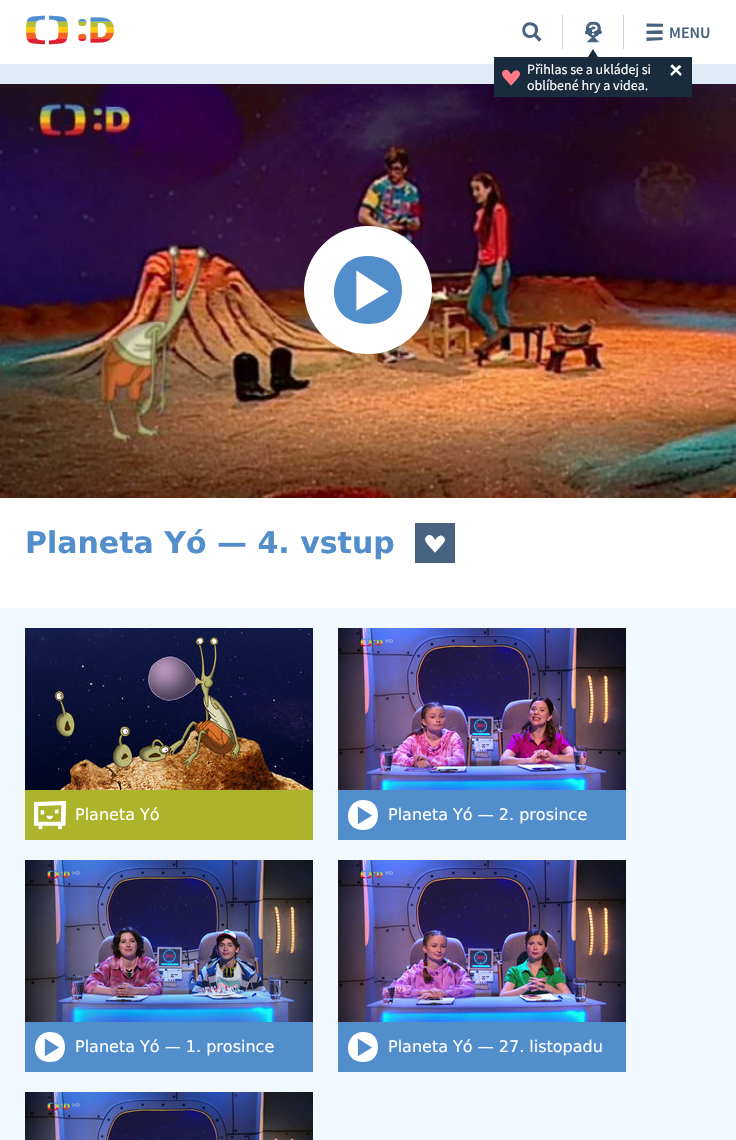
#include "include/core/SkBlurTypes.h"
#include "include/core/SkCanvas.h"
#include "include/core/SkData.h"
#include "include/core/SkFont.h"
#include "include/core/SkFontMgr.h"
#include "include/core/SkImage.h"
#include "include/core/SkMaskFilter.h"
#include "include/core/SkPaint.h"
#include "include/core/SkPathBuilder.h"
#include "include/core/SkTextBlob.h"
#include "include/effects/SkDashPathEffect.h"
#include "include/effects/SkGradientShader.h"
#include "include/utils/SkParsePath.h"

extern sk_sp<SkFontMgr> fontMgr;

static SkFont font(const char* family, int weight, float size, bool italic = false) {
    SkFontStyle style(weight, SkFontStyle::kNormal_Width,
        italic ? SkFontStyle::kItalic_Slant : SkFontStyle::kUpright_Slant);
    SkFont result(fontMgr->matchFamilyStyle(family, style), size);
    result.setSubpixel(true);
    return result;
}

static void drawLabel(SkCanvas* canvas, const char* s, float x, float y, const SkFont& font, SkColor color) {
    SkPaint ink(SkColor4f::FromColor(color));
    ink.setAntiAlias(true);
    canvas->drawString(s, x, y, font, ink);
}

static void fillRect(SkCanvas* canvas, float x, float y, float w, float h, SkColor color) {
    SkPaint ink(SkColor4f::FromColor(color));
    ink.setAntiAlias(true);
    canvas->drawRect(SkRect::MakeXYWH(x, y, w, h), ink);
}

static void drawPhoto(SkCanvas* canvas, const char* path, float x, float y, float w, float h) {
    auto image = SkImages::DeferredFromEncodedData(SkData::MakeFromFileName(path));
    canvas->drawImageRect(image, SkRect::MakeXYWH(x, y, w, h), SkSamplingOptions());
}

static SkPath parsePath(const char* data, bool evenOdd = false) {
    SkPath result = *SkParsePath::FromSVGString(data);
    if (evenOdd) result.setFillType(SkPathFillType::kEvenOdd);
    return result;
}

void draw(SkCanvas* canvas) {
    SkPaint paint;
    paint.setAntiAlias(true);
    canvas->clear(0xFFE0ECF5);
    fillRect(canvas, 0, 0, 736, 64, 0xFFFFFFFF);
    drawPhoto(canvas, "assets/img1.png", 25, 15, 90, 30);
    drawPhoto(canvas, "assets/img2.png", 522, 22, 20, 20);
    fillRect(canvas, 623, 15, 1, 34, 0xFFC3D7E6);
    drawPhoto(canvas, "assets/img3.png", 646, 23, 17, 18);
    SkFont font1 = font("Source Sans Pro", 600, 16);
    drawLabel(canvas, "MENU", 669, 38, font1, 0xFF486380);
    fillRect(canvas, 562, 15, 1, 34, 0xFFC3D7E6);
    drawPhoto(canvas, "assets/img4.png", 584, 21, 18, 22);
    drawPhoto(canvas, "assets/img7.png", 0, 84, 736, 414);
    fillRect(canvas, 494, 57, 198, 40, 0xFF192C3D);
    paint.setColor(0xFF192C3D);
    canvas->drawPath(parsePath("M598 57H588L593 49Z"), paint);
    drawPhoto(canvas, "assets/img5.png", 502, 69, 19, 17);
    SkFont font2 = font("Source Sans Pro", 400, 14);
    drawLabel(canvas, "Přihlas se a ukládej si", 527, 74, font2, 0xFFFFFFFF);
    drawLabel(canvas, "oblíbené hry a videa.", 527, 90, font2, 0xFFFFFFFF);
    drawPhoto(canvas, "assets/img6.png", 670, 64, 12, 12);
    drawPhoto(canvas, "assets/img8.png", 304, 226, 128, 128);
    fillRect(canvas, 0, 498, 736, 110, 0xFFFFFFFF);
    SkFont font3 = font("DejaVu Sans", 700, 30);
    drawLabel(canvas, "Planeta Yó — 4. vstup", 25, 553, font3, 0xFF518ECB);
    fillRect(canvas, 415, 523, 40, 40, 0xFF486380);
    drawPhoto(canvas, "assets/img9.png", 425, 535, 20, 18);
    fillRect(canvas, 0, 608, 736, 532, 0xFFF1F8FE);
    drawPhoto(canvas, "assets/img10.png", 25, 628, 288, 162);
    fillRect(canvas, 25, 790, 288, 50, 0xFFABB42A);
    drawPhoto(canvas, "assets/img11.png", 34, 801, 32, 28);
    SkFont font4 = font("DejaVu Sans", 400, 16);
    drawLabel(canvas, "Planeta Yó", 75, 820, font4, 0xFFFFFFFF);
    drawPhoto(canvas, "assets/img12.png", 338, 628, 288, 162);
    fillRect(canvas, 338, 790, 288, 50, 0xFF518ECB);
    drawPhoto(canvas, "assets/img13.png", 348, 800, 30, 30);
    drawLabel(canvas, "Planeta Yó — 2. prosince", 388, 820, font4, 0xFFFFFFFF);
    drawPhoto(canvas, "assets/img14.png", 25, 860, 288, 162);
    fillRect(canvas, 25, 1022, 288, 50, 0xFF518ECB);
    drawPhoto(canvas, "assets/img13.png", 35, 1032, 30, 30);
    drawLabel(canvas, "Planeta Yó — 1. prosince", 75, 1052, font4, 0xFFFFFFFF);
    drawPhoto(canvas, "assets/img15.png", 338, 860, 288, 162);
    fillRect(canvas, 338, 1022, 288, 50, 0xFF518ECB);
    drawPhoto(canvas, "assets/img13.png", 348, 1032, 30, 30);
    drawLabel(canvas, "Planeta Yó — 27. listopadu", 388, 1052, font4, 0xFFFFFFFF);
    drawPhoto(canvas, "assets/img16.png", 25, 1092, 288, 48);
}
